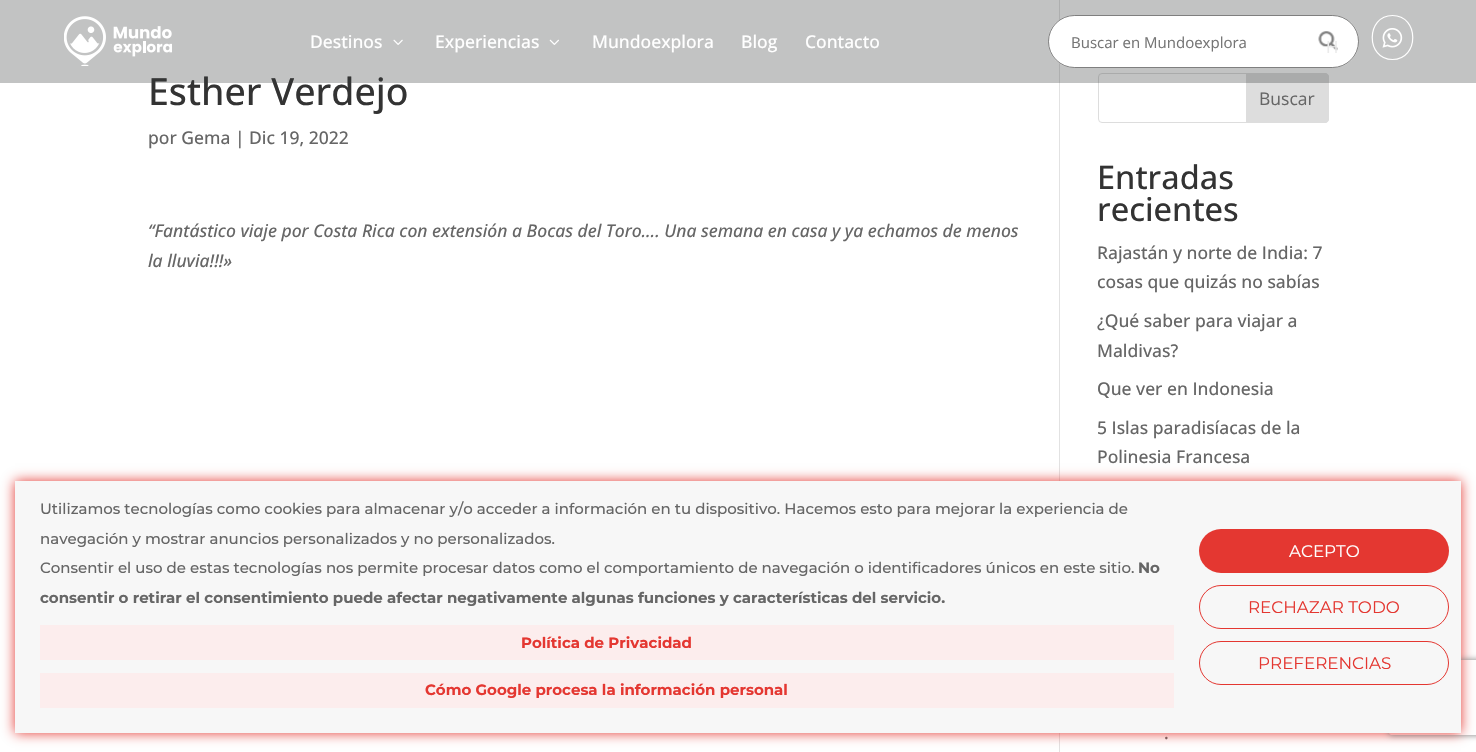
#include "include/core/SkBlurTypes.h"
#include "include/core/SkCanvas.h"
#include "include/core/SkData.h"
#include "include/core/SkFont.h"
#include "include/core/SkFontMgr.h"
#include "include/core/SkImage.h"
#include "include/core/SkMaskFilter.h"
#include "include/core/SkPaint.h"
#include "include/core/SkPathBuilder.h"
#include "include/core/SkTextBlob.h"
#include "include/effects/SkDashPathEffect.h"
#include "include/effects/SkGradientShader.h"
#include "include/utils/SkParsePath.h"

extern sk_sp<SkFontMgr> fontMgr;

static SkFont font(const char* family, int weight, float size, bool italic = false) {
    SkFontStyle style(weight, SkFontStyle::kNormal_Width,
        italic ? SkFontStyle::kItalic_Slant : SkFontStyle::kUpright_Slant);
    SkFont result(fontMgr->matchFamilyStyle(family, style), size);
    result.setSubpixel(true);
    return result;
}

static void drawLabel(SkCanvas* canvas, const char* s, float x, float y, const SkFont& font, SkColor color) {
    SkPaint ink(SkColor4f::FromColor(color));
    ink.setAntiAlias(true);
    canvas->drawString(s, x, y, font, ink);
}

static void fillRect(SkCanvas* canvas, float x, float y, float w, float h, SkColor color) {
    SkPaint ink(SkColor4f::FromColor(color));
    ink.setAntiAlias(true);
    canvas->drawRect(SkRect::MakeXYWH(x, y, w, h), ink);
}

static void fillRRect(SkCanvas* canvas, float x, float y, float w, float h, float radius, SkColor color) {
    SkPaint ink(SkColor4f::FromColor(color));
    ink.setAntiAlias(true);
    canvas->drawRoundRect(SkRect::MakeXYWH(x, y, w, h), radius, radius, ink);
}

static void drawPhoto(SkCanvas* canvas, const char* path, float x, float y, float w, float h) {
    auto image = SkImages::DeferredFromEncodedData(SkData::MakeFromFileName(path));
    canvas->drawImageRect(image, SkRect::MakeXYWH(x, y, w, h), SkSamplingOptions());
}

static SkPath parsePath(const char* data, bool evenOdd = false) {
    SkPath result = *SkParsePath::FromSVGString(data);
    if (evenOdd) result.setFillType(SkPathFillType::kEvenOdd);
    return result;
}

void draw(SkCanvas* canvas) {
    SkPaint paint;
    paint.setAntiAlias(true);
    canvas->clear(0xFFFFFFFF);
    fillRect(canvas, 1059, 0, 1, 752, 0xFFE2E2E2);
    SkFont font1 = font("Open Sans", 500, 37.5f);
    drawLabel(canvas, "Esther Verdejo", 148, 105, font1, 0xFF333333);
    paint.setStroke(true);
    paint.setStrokeWidth(1);
    paint.setColor(0xFFDDDDDD);
    canvas->drawRoundRect(SkRect::MakeXYWH(1098.5f, 73.5f, 230, 49), 3.5f, 3.5f, paint);
    paint.setStroke(false);
    canvas->drawPath(parsePath("M1246.5 73.5H1325C1327 73.5 1328.5 75 1328.5 77V119C1328.5 121 1327 122.5 1325 122.5H1246.5Z"), paint);
    paint.setStroke(true);
    canvas->drawPath(parsePath("M1246.5 73.5H1325C1327 73.5 1328.5 75 1328.5 77V119C1328.5 121 1327 122.5 1325 122.5H1246.5Z"), paint);
    fillRect(canvas, 0, 0, 1476, 83, 0x4D363839);
    drawPhoto(canvas, "assets/img1.png", 64, 16, 108, 50);
    SkFont font2 = font("Open Sans", 500, 17.5f);
    drawLabel(canvas, "Destinos", 310, 48, font2, 0xFFFFFFFF);
    drawPhoto(canvas, "assets/img2.png", 393, 39, 10, 6);
    drawLabel(canvas, "Experiencias", 435, 48, font2, 0xFFFFFFFF);
    drawPhoto(canvas, "assets/img3.png", 549, 39, 10, 6);
    drawLabel(canvas, "Mundoexplora", 592, 48, font2, 0xFFFFFFFF);
    drawLabel(canvas, "Blog", 741, 48, font2, 0xFFFFFFFF);
    drawLabel(canvas, "Contacto", 805, 48, font2, 0xFFFFFFFF);
    fillRRect(canvas, 1048, 15, 311, 53, 26.5f, 0xFFFFFFFF);
    paint.setColor(0x80000000);
    canvas->drawRoundRect(SkRect::MakeXYWH(1048.5f, 15.5f, 310, 52), 26, 26, paint);
    SkFont font3 = font("Open Sans", 400, 15);
    drawLabel(canvas, "Buscar en Mundoexplora", 1071, 48, font3, 0xFF757575);
    drawPhoto(canvas, "assets/img4.png", 1318, 31, 20, 20);
    SkFont font4 = font("Open Sans", 400, 16.75f);
    drawLabel(canvas, "H", 1326, 53, font4, 0xFFEBEBEB);
    paint.setStrokeWidth(1.2f);
    paint.setColor(0xFFFFFFFF);
    canvas->drawPath(parsePath("M1392.5 15.5C1419.5 15.5 1419.5 59.5 1392.5 59.5C1365.5 59.5 1365.5 15.5 1392.5 15.5Z"), paint);
    drawPhoto(canvas, "assets/img5.png", 1382, 28, 21, 20);
    drawLabel(canvas, "por Gema | Dic 19, 2022", 148, 144, font2, 0xFF666666);
    SkFont font5 = font("Open Sans", 500, 17.5f, true);
    drawLabel(canvas, "“Fantástico viaje por Costa Rica con extensión a Bocas del Toro…. Una semana en casa y ya echamos de menos", 148, 237, font5, 0xFF666666);
    drawLabel(canvas, "la lluvia!!!»", 148, 267, font5, 0xFF666666);
    SkFont font6 = font("Open Sans", 400, 17.5f);
    drawLabel(canvas, "Buscar", 1259, 105, font6, 0xFF666666);
    SkFont font7 = font("Open Sans", 500, 32.5f);
    drawLabel(canvas, "Entradas", 1097, 189, font7, 0xFF333333);
    drawLabel(canvas, "recientes", 1097, 221, font7, 0xFF333333);
    drawLabel(canvas, "Rajastán y norte de India: 7", 1097, 259, font2, 0xFF666666);
    drawLabel(canvas, "cosas que quizás no sabías", 1097, 288, font2, 0xFF666666);
    drawLabel(canvas, "¿Qué saber para viajar a", 1097, 327, font2, 0xFF666666);
    drawLabel(canvas, "Maldivas?", 1097, 357, font2, 0xFF666666);
    drawLabel(canvas, "Que ver en Indonesia", 1097, 395, font2, 0xFF666666);
    drawLabel(canvas, "5 Islas paradisíacas de la", 1097, 434, font2, 0xFF666666);
    drawLabel(canvas, "Polinesia Francesa", 1097, 463, font2, 0xFF666666);
    drawLabel(canvas, ".", 1164, 739, font2, 0xFF666666);
    paint.setStroke(false);
    paint.setColor(0xFFE43731);
    paint.setMaskFilter(SkMaskFilter::MakeBlur(kNormal_SkBlurStyle, 6));
    canvas->drawRect(SkRect::MakeXYWH(15, 481, 1446, 252), paint);
    paint.setMaskFilter(nullptr);
    canvas->save();
    canvas->clipPath(parsePath("M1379 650H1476V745H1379ZM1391.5 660H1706.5C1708 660 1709 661 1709 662.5V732.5C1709 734 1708 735 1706.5 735H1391.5C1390 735 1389 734 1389 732.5V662.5C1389 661 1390 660 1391.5 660Z", true), true);
    paint.setColor(0xFF808080);
    paint.setMaskFilter(SkMaskFilter::MakeBlur(kNormal_SkBlurStyle, 3));
    canvas->drawRoundRect(SkRect::MakeXYWH(1389, 660, 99, 75), 2.5f, 2.5f, paint);
    paint.setMaskFilter(nullptr);
    canvas->restore();
    fillRect(canvas, 15, 481, 1446, 252, 0xFFF7F7F7);
    SkFont font8 = font("Montserrat", 500, 15);
    drawLabel(canvas, "Utilizamos tecnologías como cookies para almacenar y/o acceder a información en tu dispositivo. Hacemos esto para mejorar la experiencia de", 40, 514, font8, 0xFF666666);
    drawLabel(canvas, "navegación y mostrar anuncios personalizados y no personalizados.", 40, 544, font8, 0xFF666666);
    drawLabel(canvas, "Consentir el uso de estas tecnologías nos permite procesar datos como el comportamiento de navegación o identificadores únicos en este sitio.", 40, 573, font8, 0xFF666666);
    SkFont font9 = font("Montserrat", 700, 15);
    drawLabel(canvas, "No", 1138, 573, font9, 0xFF666666);
    drawLabel(canvas, "consentir o retirar el consentimiento puede afectar negativamente algunas funciones y características del servicio.", 40, 603, font9, 0xFF666666);
    fillRect(canvas, 40, 625, 1134, 35, 0xFFFCEDED);
    drawLabel(canvas, "Política de Privacidad", 521, 648, font9, 0xFFE43731);
    fillRect(canvas, 40, 673, 1134, 35, 0xFFFCEDED);
    drawLabel(canvas, "Cómo Google procesa la información personal", 425, 695, font9, 0xFFE43731);
    fillRRect(canvas, 1199, 529, 250, 44, 22, 0xFFE43731);
    SkFont font10 = font("Montserrat", 400, 16.75f);
    drawLabel(canvas, "ACEPTO", 1289, 557, font10, 0xFFFFFFFF);
    paint.setStroke(true);
    paint.setStrokeWidth(1);
    paint.setColor(0xFFE43731);
    canvas->drawRoundRect(SkRect::MakeXYWH(1199.5f, 585.5f, 249, 43), 21.5f, 21.5f, paint);
    drawLabel(canvas, "RECHAZAR TODO", 1248, 613, font10, 0xFFE43731);
    canvas->drawRoundRect(SkRect::MakeXYWH(1199.5f, 641.5f, 249, 43), 21.5f, 21.5f, paint);
    drawLabel(canvas, "PREFERENCIAS", 1258, 669, font10, 0xFFE43731);
}
